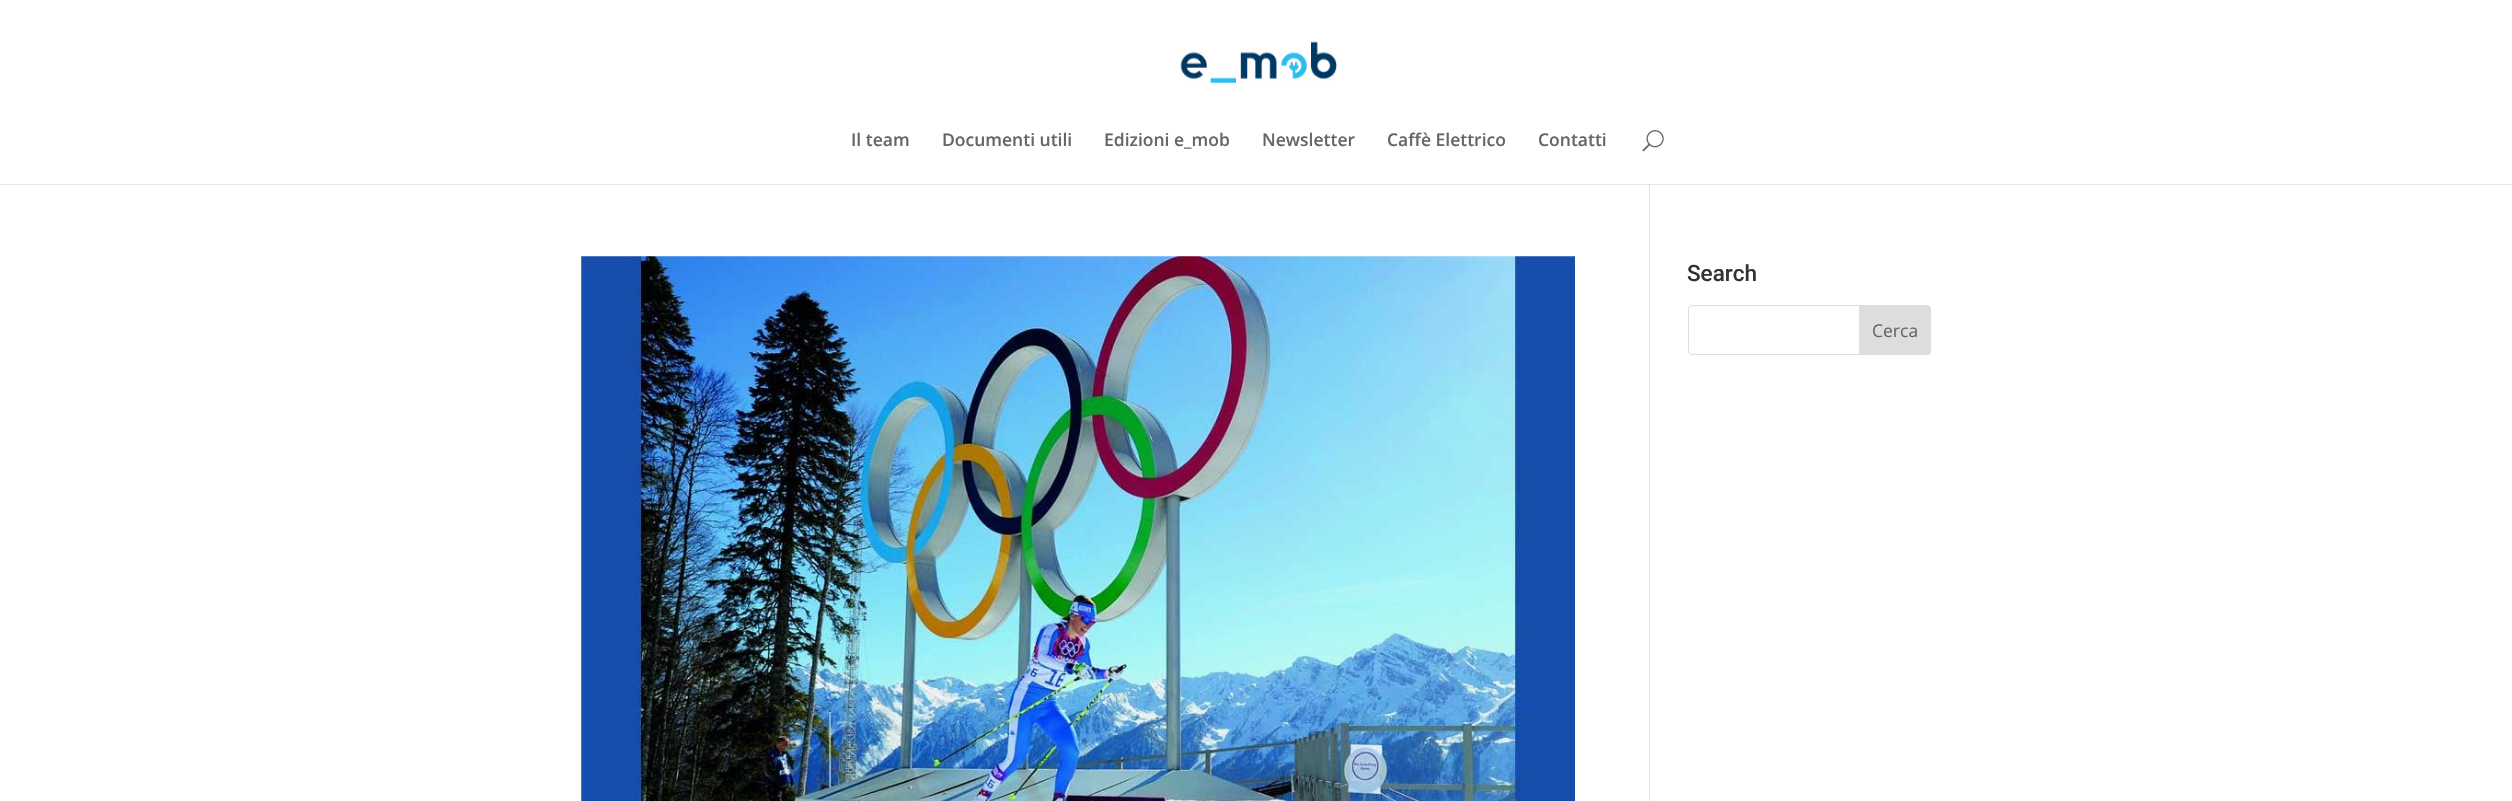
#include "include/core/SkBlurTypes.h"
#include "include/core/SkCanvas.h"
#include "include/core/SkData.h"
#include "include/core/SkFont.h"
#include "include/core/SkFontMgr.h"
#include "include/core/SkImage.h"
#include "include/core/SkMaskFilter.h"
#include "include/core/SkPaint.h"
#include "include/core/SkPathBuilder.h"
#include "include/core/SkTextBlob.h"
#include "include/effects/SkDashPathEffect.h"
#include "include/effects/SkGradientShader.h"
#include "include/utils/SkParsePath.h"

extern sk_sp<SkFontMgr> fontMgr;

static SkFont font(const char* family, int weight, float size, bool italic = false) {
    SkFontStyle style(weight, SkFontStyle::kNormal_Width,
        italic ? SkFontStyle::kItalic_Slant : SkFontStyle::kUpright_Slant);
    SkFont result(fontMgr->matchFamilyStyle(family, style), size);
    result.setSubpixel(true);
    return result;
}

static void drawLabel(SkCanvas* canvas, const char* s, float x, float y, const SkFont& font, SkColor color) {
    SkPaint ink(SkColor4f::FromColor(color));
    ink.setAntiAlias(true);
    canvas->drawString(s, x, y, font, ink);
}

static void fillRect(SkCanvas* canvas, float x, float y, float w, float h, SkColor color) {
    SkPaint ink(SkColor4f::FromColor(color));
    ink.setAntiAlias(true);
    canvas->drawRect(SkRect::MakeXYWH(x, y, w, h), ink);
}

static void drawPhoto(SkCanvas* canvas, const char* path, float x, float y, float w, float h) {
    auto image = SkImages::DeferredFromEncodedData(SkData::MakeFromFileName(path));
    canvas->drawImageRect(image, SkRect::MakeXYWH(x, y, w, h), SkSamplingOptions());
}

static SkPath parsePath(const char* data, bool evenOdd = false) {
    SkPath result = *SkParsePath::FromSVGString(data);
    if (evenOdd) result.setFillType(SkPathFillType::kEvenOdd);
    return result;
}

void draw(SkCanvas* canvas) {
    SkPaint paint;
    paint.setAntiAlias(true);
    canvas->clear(0xFFFFFFFF);
    fillRect(canvas, 1649, 184, 1, 617, 0xFFE2E2E2);
    paint.setColor(0x1A000000);
    canvas->drawPath(parsePath("M0 184V185H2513V1H2512V184Z"), paint);
    drawPhoto(canvas, "assets/img1.png", 1180, 41, 157, 42);
    SkFont font1 = font("Open Sans", 600, 17.5f);
    drawLabel(canvas, "Il team", 851, 146, font1, 0xFF666666);
    drawLabel(canvas, "Documenti utili", 942, 146, font1, 0xFF666666);
    drawLabel(canvas, "Edizioni e_mob", 1104, 146, font1, 0xFF666666);
    drawLabel(canvas, "Newsletter", 1262, 146, font1, 0xFF666666);
    drawLabel(canvas, "Caffè Elettrico", 1387, 146, font1, 0xFF666666);
    drawLabel(canvas, "Contatti", 1538, 146, font1, 0xFF666666);
    drawPhoto(canvas, "assets/img2.png", 1642, 130, 22, 22);
    drawPhoto(canvas, "assets/img3.png", 581, 256, 994, 545);
    SkFont font2 = font("Roboto", 500, 22.5f);
    drawLabel(canvas, "Search", 1687, 281, font2, 0xFF333333);
    paint.setStroke(true);
    paint.setStrokeWidth(1);
    paint.setColor(0xFFDDDDDD);
    canvas->drawRoundRect(SkRect::MakeXYWH(1688.5f, 305.5f, 242, 49), 3.5f, 3.5f, paint);
    paint.setStroke(false);
    canvas->drawPath(parsePath("M1859.5 305.5H1927C1929 305.5 1930.5 307 1930.5 309V351C1930.5 353 1929 354.5 1927 354.5H1859.5Z"), paint);
    paint.setStroke(true);
    canvas->drawPath(parsePath("M1859.5 305.5H1927C1929 305.5 1930.5 307 1930.5 309V351C1930.5 353 1929 354.5 1927 354.5H1859.5Z"), paint);
    SkFont font3 = font("Open Sans", 400, 17.5f);
    drawLabel(canvas, "Cerca", 1872, 337, font3, 0xFF666666);
}
